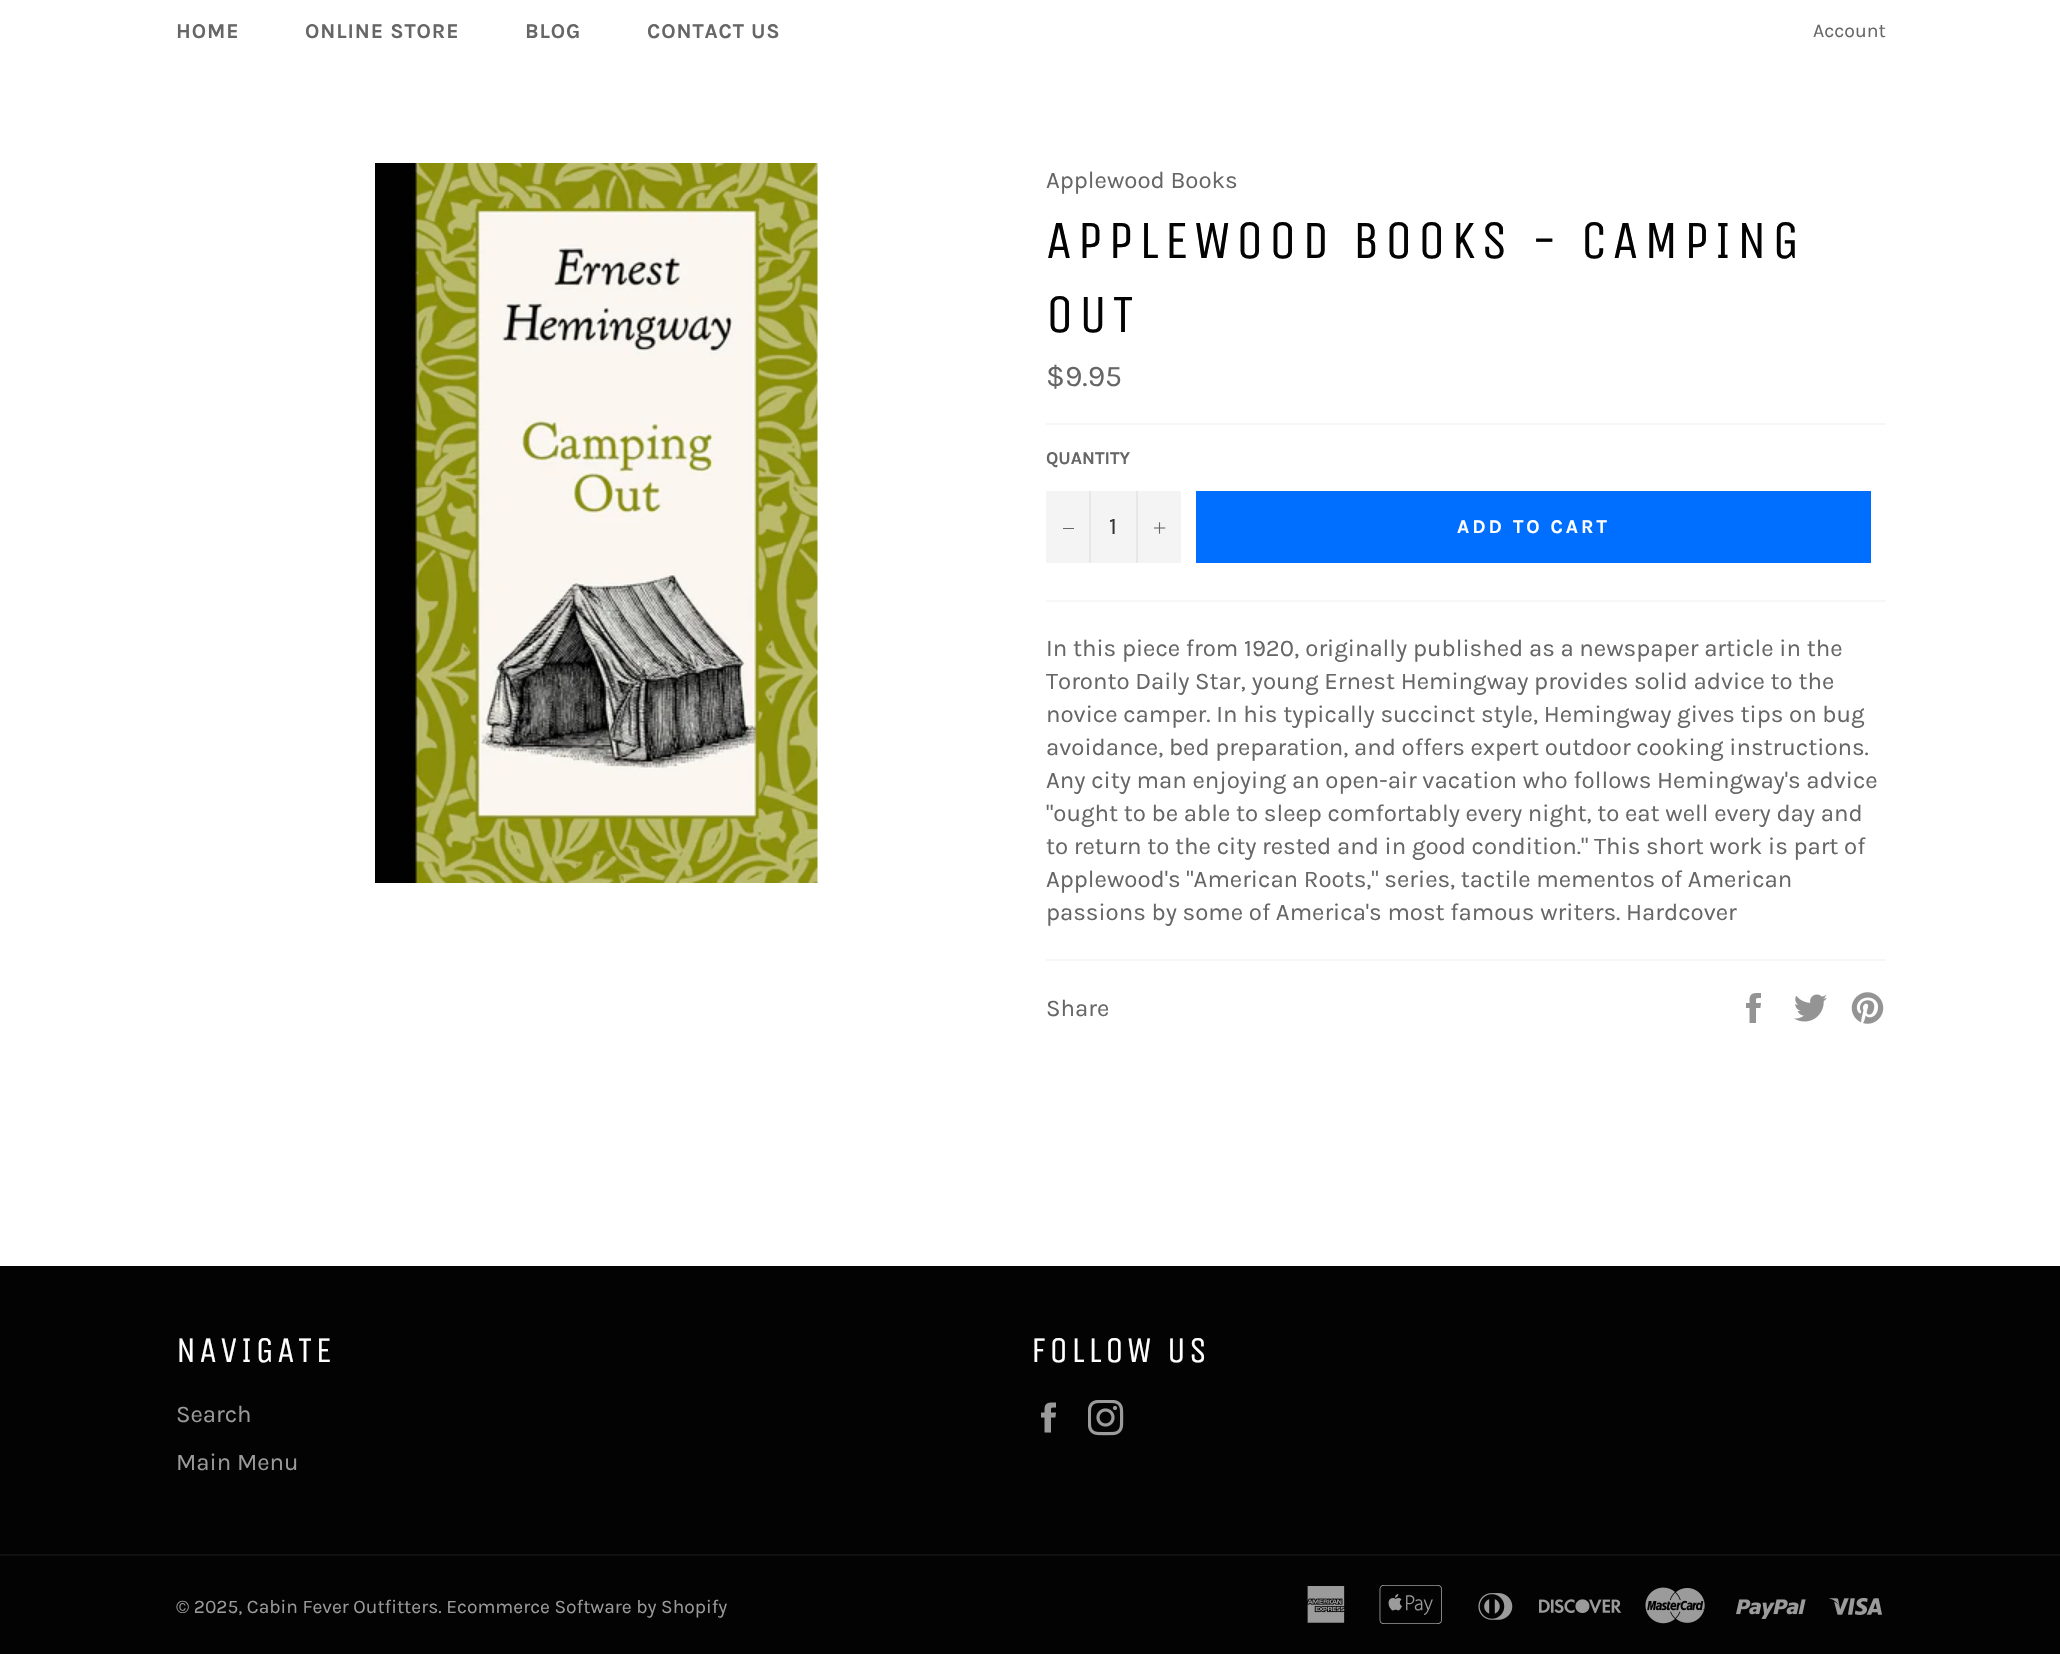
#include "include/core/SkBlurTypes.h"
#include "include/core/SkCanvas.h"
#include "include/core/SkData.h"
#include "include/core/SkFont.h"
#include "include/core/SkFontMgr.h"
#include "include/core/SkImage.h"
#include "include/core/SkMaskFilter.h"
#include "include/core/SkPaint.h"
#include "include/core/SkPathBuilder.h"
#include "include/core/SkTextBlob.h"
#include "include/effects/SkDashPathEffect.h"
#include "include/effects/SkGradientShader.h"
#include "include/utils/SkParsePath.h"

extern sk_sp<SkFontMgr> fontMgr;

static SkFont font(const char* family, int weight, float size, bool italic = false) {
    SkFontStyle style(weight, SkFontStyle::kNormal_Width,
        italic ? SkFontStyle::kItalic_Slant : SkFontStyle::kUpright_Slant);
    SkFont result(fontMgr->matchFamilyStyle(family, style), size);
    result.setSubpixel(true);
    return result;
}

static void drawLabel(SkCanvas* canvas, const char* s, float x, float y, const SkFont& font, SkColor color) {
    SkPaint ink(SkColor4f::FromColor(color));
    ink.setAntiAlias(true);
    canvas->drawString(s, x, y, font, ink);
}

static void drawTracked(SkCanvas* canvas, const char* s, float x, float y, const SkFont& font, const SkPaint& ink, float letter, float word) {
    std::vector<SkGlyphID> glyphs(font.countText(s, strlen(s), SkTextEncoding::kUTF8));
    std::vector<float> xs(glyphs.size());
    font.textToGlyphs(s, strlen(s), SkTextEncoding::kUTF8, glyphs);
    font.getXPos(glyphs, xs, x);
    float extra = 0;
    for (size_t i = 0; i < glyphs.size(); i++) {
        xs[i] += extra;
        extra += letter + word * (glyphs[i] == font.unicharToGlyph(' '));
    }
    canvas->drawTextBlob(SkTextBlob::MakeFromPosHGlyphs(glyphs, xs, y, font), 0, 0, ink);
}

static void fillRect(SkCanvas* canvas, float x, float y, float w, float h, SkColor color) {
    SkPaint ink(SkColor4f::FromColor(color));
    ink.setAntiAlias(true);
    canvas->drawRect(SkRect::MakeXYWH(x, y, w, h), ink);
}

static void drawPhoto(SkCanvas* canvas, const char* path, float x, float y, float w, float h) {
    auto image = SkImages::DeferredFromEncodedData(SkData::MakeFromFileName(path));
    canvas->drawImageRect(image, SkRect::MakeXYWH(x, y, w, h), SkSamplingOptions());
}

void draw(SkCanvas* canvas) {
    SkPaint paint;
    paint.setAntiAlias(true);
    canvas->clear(0xFFFFFFFF);
    SkFont font1 = font("Karla", 700, 21);
    paint.setColor(0xFF666666);
    drawTracked(canvas, "HOME", 176, 38, font1, paint, 0.9f, 0);
    drawTracked(canvas, "ONLINE STORE", 305, 38, font1, paint, 0.9f, 0);
    drawTracked(canvas, "BLOG", 525, 38, font1, paint, 0.9f, 0);
    drawTracked(canvas, "CONTACT US", 647, 38, font1, paint, 0.9f, 0);
    SkFont font2 = font("Karla", 400, 19.5f);
    drawLabel(canvas, "Account", 1813, 37, font2, 0xFF666666);
    drawPhoto(canvas, "assets/img1.png", 375, 163, 443, 720);
    SkFont font3 = font("Karla", 400, 24);
    drawLabel(canvas, "Applewood Books", 1046, 188, font3, 0xFF666666);
    SkFont font4 = font("Unica One", 400, 54);
    paint.setColor(0xFF030303);
    drawTracked(canvas, "APPLEWOOD BOOKS - CAMPING", 1046, 258, font4, paint, 5.4f, 0);
    drawTracked(canvas, "OUT", 1046, 332, font4, paint, 5.4f, 0);
    SkFont font5 = font("Karla", 400, 30);
    drawLabel(canvas, "$9.95", 1046, 386, font5, 0xFF666666);
    fillRect(canvas, 1046, 423, 840, 2, 0xFFF7F7F7);
    SkFont font6 = font("Karla", 700, 18);
    drawLabel(canvas, "QUANTITY", 1046, 464, font6, 0xFF666666);
    fillRect(canvas, 1046, 491, 135, 72, 0xFFF4F4F4);
    fillRect(canvas, 1089, 491, 2, 72, 0xFFE7E7E7);
    fillRect(canvas, 1063, 528, 11, 1, 0xFF666666);
    drawLabel(canvas, "1", 1109, 534, font3, 0xFF333333);
    fillRect(canvas, 1136, 491, 2, 72, 0xFFE7E7E7);
    drawPhoto(canvas, "assets/img2.png", 1154, 522, 12, 12);
    fillRect(canvas, 1196, 491, 675, 72, 0xFF006EFF);
    SkFont font7 = font("Karla", 700, 19.5f);
    paint.setColor(0xFFFFFFFF);
    drawTracked(canvas, "ADD TO CART", 1457, 533, font7, paint, 3, 0);
    fillRect(canvas, 1046, 600, 840, 2, 0xFFF7F7F7);
    drawLabel(canvas, "In this piece from 1920‚ originally published as a newspaper article in the", 1046, 656, font3, 0xFF666666);
    drawLabel(canvas, "Toronto Daily Star‚ young Ernest Hemingway provides solid advice to the", 1046, 689, font3, 0xFF666666);
    drawLabel(canvas, "novice camper. In his typically succinct style, Hemingway gives tips on bug", 1046, 722, font3, 0xFF666666);
    drawLabel(canvas, "avoidance, bed preparation, and offers expert outdoor cooking instructions.", 1046, 755, font3, 0xFF666666);
    drawLabel(canvas, "Any city man enjoying an open-air vacation who follows Hemingway's advice", 1046, 788, font3, 0xFF666666);
    drawLabel(canvas, "\"ought to be able to sleep comfortably every night, to eat well every day and", 1046, 821, font3, 0xFF666666);
    drawLabel(canvas, "to return to the city rested and in good condition.\" This short work is part of", 1046, 854, font3, 0xFF666666);
    drawLabel(canvas, "Applewood's \"American Roots,\" series, tactile mementos of American", 1046, 887, font3, 0xFF666666);
    drawLabel(canvas, "passions by some of America's most famous writers. Hardcover", 1046, 920, font3, 0xFF666666);
    fillRect(canvas, 1046, 959, 840, 2, 0xFFF7F7F7);
    drawLabel(canvas, "Share", 1046, 1016, font3, 0xFF666666);
    drawPhoto(canvas, "assets/img3.png", 1746, 993, 15, 30);
    drawPhoto(canvas, "assets/img4.png", 1794, 994, 33, 28);
    drawPhoto(canvas, "assets/img5.png", 1851, 992, 33, 32);
    fillRect(canvas, 0, 1266, 2060, 388, 0xFF030303);
    SkFont font8 = font("Unica One", 400, 36);
    drawTracked(canvas, "NAVIGATE", 176, 1362, font8, paint, 3.5f, 0);
    drawLabel(canvas, "Search", 176, 1422, font3, 0xFF9A9A9A);
    drawLabel(canvas, "Main Menu", 176, 1470, font3, 0xFF9A9A9A);
    drawTracked(canvas, "FOLLOW US", 1031, 1362, font8, paint, 3.5f, 0);
    drawPhoto(canvas, "assets/img6.png", 1041, 1402, 15, 31);
    drawPhoto(canvas, "assets/img7.png", 1088, 1400, 36, 36);
    fillRect(canvas, 0, 1554, 2060, 2, 0xFF101010);
    SkFont font9 = font("Karla", 400, 19.2f);
    drawLabel(canvas, "© 2025, Cabin Fever Outfitters. Ecommerce Software by Shopify", 176, 1613, font9, 0xFF9A9A9A);
    drawPhoto(canvas, "assets/img8.png", 1307, 1586, 38, 37);
    drawPhoto(canvas, "assets/img9.png", 1379, 1585, 63, 39);
    drawPhoto(canvas, "assets/img10.png", 1478, 1593, 35, 27);
    drawPhoto(canvas, "assets/img11.png", 1539, 1599, 83, 15);
    drawPhoto(canvas, "assets/img12.png", 1645, 1587, 60, 37);
    drawPhoto(canvas, "assets/img13.png", 1736, 1599, 70, 20);
    drawPhoto(canvas, "assets/img14.png", 1829, 1597, 53, 18);
}
